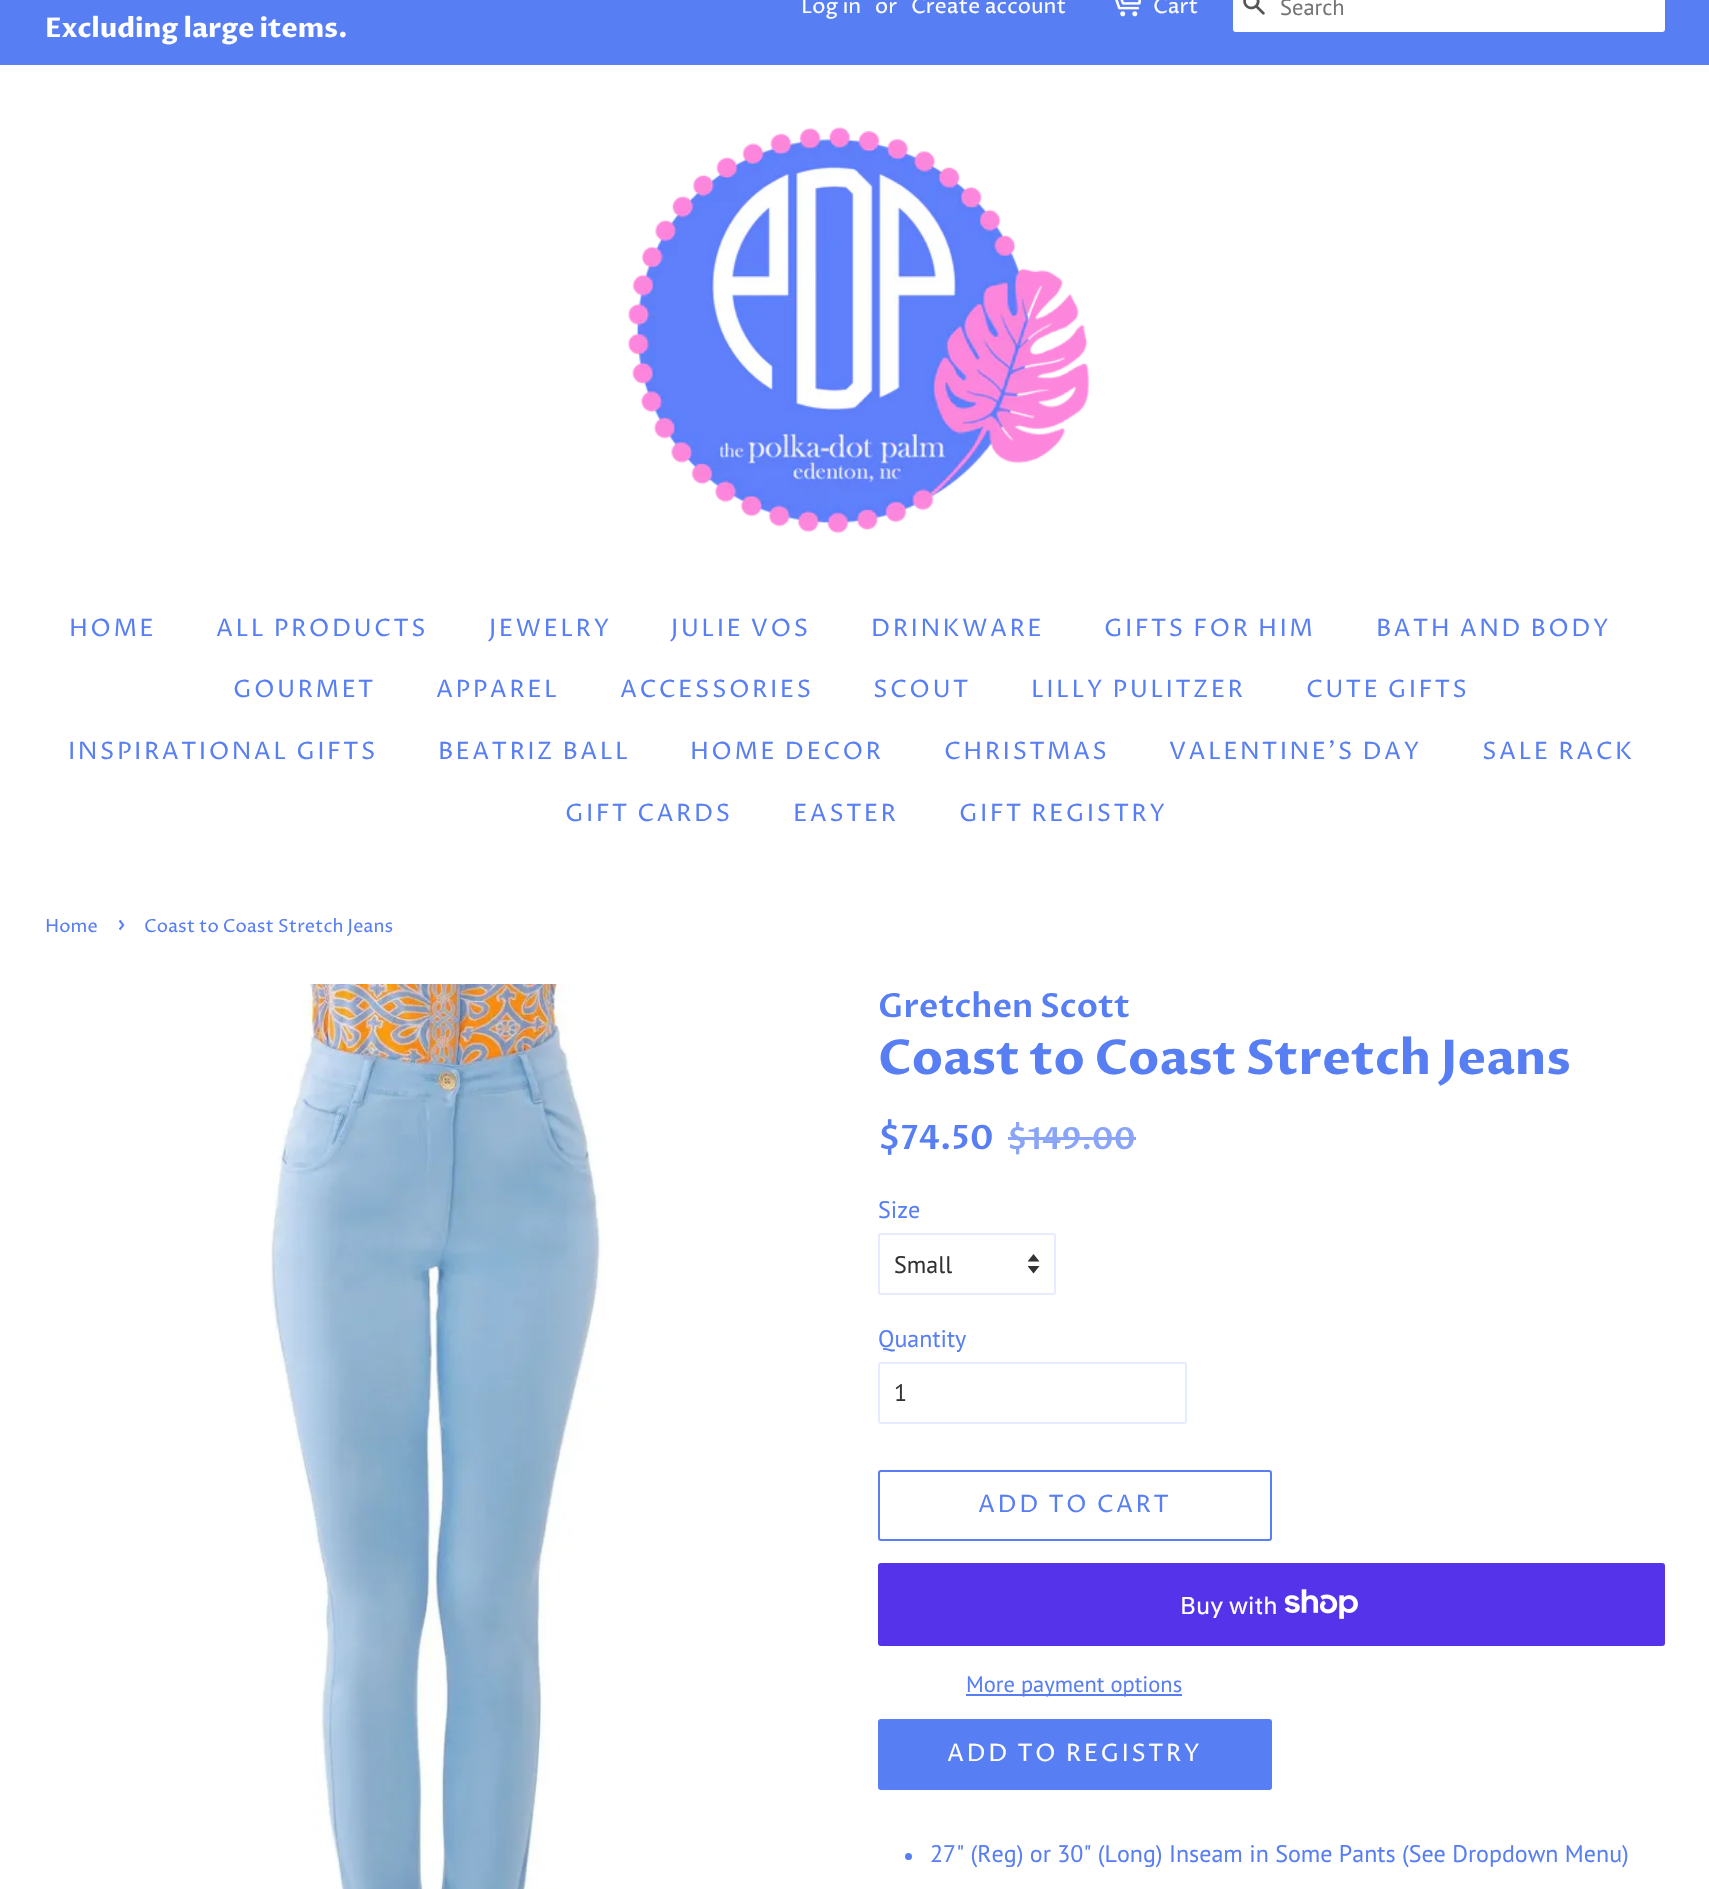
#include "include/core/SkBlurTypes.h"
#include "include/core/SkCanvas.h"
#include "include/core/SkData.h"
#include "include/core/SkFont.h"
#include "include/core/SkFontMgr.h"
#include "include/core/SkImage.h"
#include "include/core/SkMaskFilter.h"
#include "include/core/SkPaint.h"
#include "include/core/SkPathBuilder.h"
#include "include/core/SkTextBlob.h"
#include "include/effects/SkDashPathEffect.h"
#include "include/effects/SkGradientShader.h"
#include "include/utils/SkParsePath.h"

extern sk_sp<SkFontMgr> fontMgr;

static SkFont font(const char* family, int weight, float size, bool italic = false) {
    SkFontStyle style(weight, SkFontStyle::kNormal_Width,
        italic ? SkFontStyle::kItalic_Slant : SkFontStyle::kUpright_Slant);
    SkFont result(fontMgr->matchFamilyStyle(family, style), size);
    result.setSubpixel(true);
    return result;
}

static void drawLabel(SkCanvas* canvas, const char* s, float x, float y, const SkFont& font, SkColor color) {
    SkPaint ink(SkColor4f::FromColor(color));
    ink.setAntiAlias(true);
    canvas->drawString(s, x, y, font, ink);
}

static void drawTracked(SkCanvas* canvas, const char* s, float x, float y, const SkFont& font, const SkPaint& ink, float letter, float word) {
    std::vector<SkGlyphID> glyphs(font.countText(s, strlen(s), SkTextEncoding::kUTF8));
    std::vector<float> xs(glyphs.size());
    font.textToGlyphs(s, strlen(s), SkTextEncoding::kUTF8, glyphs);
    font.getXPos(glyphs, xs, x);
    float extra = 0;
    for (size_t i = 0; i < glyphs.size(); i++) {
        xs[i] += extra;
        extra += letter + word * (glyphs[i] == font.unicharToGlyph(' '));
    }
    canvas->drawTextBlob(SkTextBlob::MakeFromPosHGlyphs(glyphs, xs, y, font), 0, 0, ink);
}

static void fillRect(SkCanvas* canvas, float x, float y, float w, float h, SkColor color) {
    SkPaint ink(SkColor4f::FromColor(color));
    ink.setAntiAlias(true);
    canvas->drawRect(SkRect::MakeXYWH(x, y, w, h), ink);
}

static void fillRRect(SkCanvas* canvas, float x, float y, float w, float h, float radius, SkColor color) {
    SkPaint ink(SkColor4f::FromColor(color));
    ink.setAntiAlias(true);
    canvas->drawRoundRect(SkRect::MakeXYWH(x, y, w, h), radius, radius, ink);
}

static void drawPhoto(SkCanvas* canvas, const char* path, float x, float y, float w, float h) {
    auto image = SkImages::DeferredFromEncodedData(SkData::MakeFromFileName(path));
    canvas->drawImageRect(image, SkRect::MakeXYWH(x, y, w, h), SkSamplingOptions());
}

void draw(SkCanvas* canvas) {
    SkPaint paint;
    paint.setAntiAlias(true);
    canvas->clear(0xFFFFFFFF);
    fillRect(canvas, 0, 0, 1709, 65, 0xFF587EF4);
    SkFont font1 = font("Proza Libre", 400, 21);
    drawLabel(canvas, "Log in", 801, 13, font1, 0xFFFFFFFF);
    drawLabel(canvas, "or", 875, 13, font1, 0xFFFFFFFF);
    drawLabel(canvas, "Create account", 911, 13, font1, 0xFFFFFFFF);
    drawPhoto(canvas, "assets/img1.png", 1115, 0, 26, 17);
    drawLabel(canvas, "Cart", 1153, 13, font1, 0xFFFFFFFF);
    fillRRect(canvas, 1233, -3, 432, 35, 3, 0xFFFFFFFF);
    drawPhoto(canvas, "assets/img2.png", 1243, 0, 22, 15);
    SkFont font2 = font("PT Sans", 400, 22.5f);
    drawLabel(canvas, "Search", 1280, 15, font2, 0xFF757575);
    SkFont font3 = font("Proza Libre", 700, 27);
    drawLabel(canvas, "Excluding large items.", 45, 37, font3, 0xFFFFFFFF);
    drawPhoto(canvas, "assets/img3.png", 628, 127, 461, 407);
    SkFont font4 = font("Proza Libre", 400, 24);
    paint.setColor(0xFF587EF4);
    drawTracked(canvas, "HOME", 69, 636, font4, paint, 2.4f, 0);
    drawTracked(canvas, "ALL PRODUCTS", 216, 636, font4, paint, 2.4f, 0);
    drawTracked(canvas, "JEWELRY", 489, 636, font4, paint, 2.4f, 0);
    drawTracked(canvas, "JULIE VOS", 671, 636, font4, paint, 2.4f, 0);
    drawTracked(canvas, "DRINKWARE", 871, 636, font4, paint, 2.4f, 0);
    drawTracked(canvas, "GIFTS FOR HIM", 1104, 636, font4, paint, 2.4f, 0);
    drawTracked(canvas, "BATH AND BODY", 1376, 636, font4, paint, 2.4f, 0);
    drawTracked(canvas, "GOURMET", 233, 697, font4, paint, 2.4f, 0);
    drawTracked(canvas, "APPAREL", 436, 697, font4, paint, 2.4f, 0);
    drawTracked(canvas, "ACCESSORIES", 620, 697, font4, paint, 2.4f, 0);
    drawTracked(canvas, "SCOUT", 873, 697, font4, paint, 2.4f, 0);
    drawTracked(canvas, "LILLY PULITZER", 1031, 697, font4, paint, 2.4f, 0);
    drawTracked(canvas, "CUTE GIFTS", 1306, 697, font4, paint, 2.4f, 0);
    drawTracked(canvas, "INSPIRATIONAL GIFTS", 68, 759, font4, paint, 2.4f, 0);
    drawTracked(canvas, "BEATRIZ BALL", 438, 759, font4, paint, 2.4f, 0);
    drawTracked(canvas, "HOME DECOR", 690, 759, font4, paint, 2.4f, 0);
    drawTracked(canvas, "CHRISTMAS", 944, 759, font4, paint, 2.4f, 0);
    drawTracked(canvas, "VALENTINE’S DAY", 1169, 759, font4, paint, 2.4f, 0);
    drawTracked(canvas, "SALE RACK", 1482, 759, font4, paint, 2.4f, 0);
    drawTracked(canvas, "GIFT CARDS", 565, 821, font4, paint, 2.4f, 0);
    drawTracked(canvas, "EASTER", 793, 821, font4, paint, 2.4f, 0);
    drawTracked(canvas, "GIFT REGISTRY", 959, 821, font4, paint, 2.4f, 0);
    SkFont font5 = font("Proza Libre", 400, 18);
    drawLabel(canvas, "Home", 45, 932, font5, 0xFF587EF4);
    SkFont font6 = font("Proza Libre", 400, 25);
    drawLabel(canvas, "›", 117, 932, font6, 0xFF587EF4);
    drawLabel(canvas, "Coast to Coast Stretch Jeans", 144, 932, font5, 0xFF587EF4);
    drawPhoto(canvas, "assets/img4.png", 270, 984, 335, 905);
    SkFont font7 = font("Proza Libre", 600, 33);
    drawLabel(canvas, "Gretchen Scott", 878, 1017, font7, 0xFF587EF4);
    SkFont font8 = font("Proza Libre", 700, 48);
    drawLabel(canvas, "Coast to Coast Stretch Jeans", 878, 1074, font8, 0xFF587EF4);
    SkFont font9 = font("Proza Libre", 600, 33.5f);
    drawLabel(canvas, "$74.50", 878, 1149, font9, 0xFF587EF4);
    SkFont font10 = font("Proza Libre", 600, 30.5f);
    drawLabel(canvas, "$149.00", 1007, 1149, font10, 0xFF8AA5F7);
    fillRect(canvas, 1008, 1137, 128, 3, 0xFF8AA5F7);
    SkFont font11 = font("PT Sans", 400, 24);
    drawLabel(canvas, "Size", 878, 1218, font11, 0xFF587EF4);
    drawPhoto(canvas, "assets/img5.png", 1028, 1254, 12, 20);
    paint.setStroke(true);
    paint.setStrokeWidth(2);
    paint.setColor(0xFFE6ECFD);
    canvas->drawRoundRect(SkRect::MakeXYWH(879, 1234, 176, 60), 2, 2, paint);
    drawLabel(canvas, "Small", 894, 1273, font11, 0xFF333333);
    drawLabel(canvas, "Quantity", 878, 1347, font11, 0xFF587EF4);
    canvas->drawRoundRect(SkRect::MakeXYWH(879, 1363, 307, 60), 2, 2, paint);
    drawLabel(canvas, "1", 894, 1401, font11, 0xFF333333);
    paint.setColor(0xFF587EF4);
    canvas->drawRoundRect(SkRect::MakeXYWH(879, 1471, 392, 69), 2, 2, paint);
    paint.setStroke(false);
    drawTracked(canvas, "ADD TO CART", 978, 1512, font4, paint, 2.4f, 0);
    fillRRect(canvas, 878, 1563, 787, 83, 3, 0xFF5433EB);
    SkFont font12 = font("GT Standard", 400, 24);
    drawLabel(canvas, "Buy with", 1180, 1614, font12, 0xFFFFFFFF);
    drawPhoto(canvas, "assets/img6.png", 1284, 1589, 74, 30);
    fillRect(canvas, 966, 1694, 216, 2, 0xFF587EF4);
    drawLabel(canvas, "More payment options", 966, 1692, font2, 0xFF587EF4);
    fillRRect(canvas, 878, 1719, 394, 71, 3, 0xFF587EF4);
    paint.setColor(0xFFFFFFFF);
    drawTracked(canvas, "ADD TO REGISTRY", 947, 1761, font4, paint, 2.4f, 0);
    paint.setColor(0xFF587EF4);
    canvas->drawCircle(908.5f, 1856.5f, 3.5f, paint);
    drawLabel(canvas, "27\" (Reg) or 30\" (Long) Inseam in Some Pants (See Dropdown Menu)", 930, 1862, font11, 0xFF587EF4);
}
